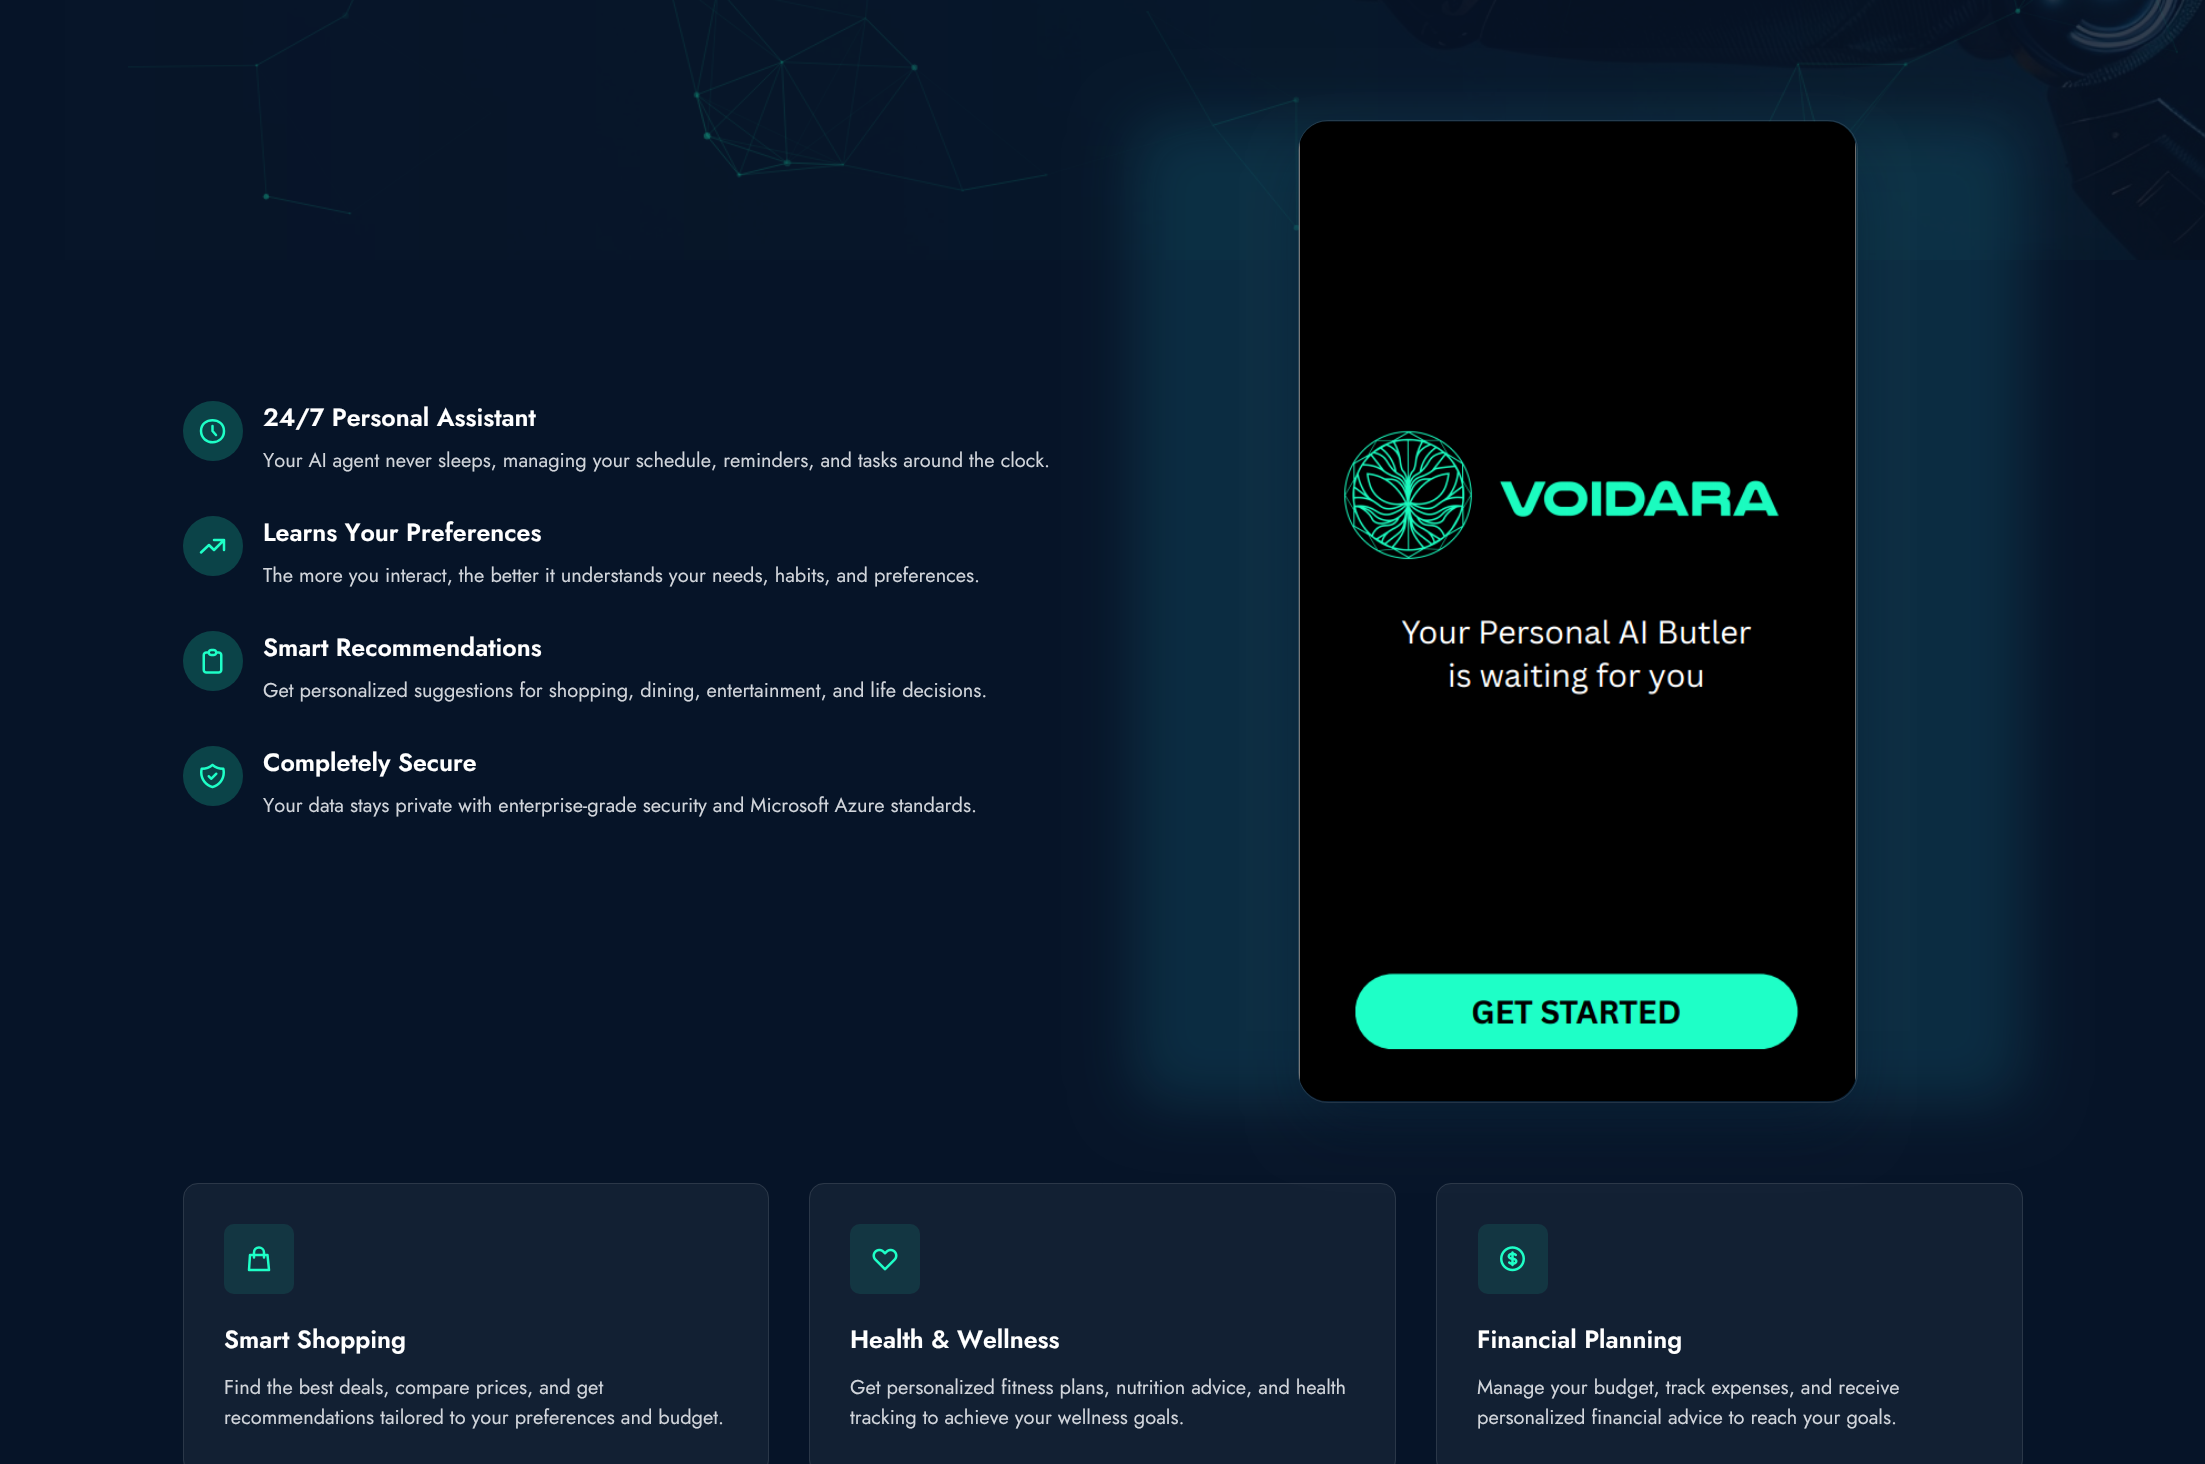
#include "include/core/SkBlurTypes.h"
#include "include/core/SkCanvas.h"
#include "include/core/SkData.h"
#include "include/core/SkFont.h"
#include "include/core/SkFontMgr.h"
#include "include/core/SkImage.h"
#include "include/core/SkMaskFilter.h"
#include "include/core/SkPaint.h"
#include "include/core/SkPathBuilder.h"
#include "include/core/SkTextBlob.h"
#include "include/effects/SkDashPathEffect.h"
#include "include/effects/SkGradientShader.h"
#include "include/utils/SkParsePath.h"

extern sk_sp<SkFontMgr> fontMgr;

static SkFont font(const char* family, int weight, float size, bool italic = false) {
    SkFontStyle style(weight, SkFontStyle::kNormal_Width,
        italic ? SkFontStyle::kItalic_Slant : SkFontStyle::kUpright_Slant);
    SkFont result(fontMgr->matchFamilyStyle(family, style), size);
    result.setSubpixel(true);
    return result;
}

static void drawLabel(SkCanvas* canvas, const char* s, float x, float y, const SkFont& font, SkColor color) {
    SkPaint ink(SkColor4f::FromColor(color));
    ink.setAntiAlias(true);
    canvas->drawString(s, x, y, font, ink);
}

static void fillRRect(SkCanvas* canvas, float x, float y, float w, float h, float radius, SkColor color) {
    SkPaint ink(SkColor4f::FromColor(color));
    ink.setAntiAlias(true);
    canvas->drawRoundRect(SkRect::MakeXYWH(x, y, w, h), radius, radius, ink);
}

static void drawPhoto(SkCanvas* canvas, const char* path, float x, float y, float w, float h) {
    auto image = SkImages::DeferredFromEncodedData(SkData::MakeFromFileName(path));
    canvas->drawImageRect(image, SkRect::MakeXYWH(x, y, w, h), SkSamplingOptions());
}

static SkPath parsePath(const char* data, bool evenOdd = false) {
    SkPath result = *SkParsePath::FromSVGString(data);
    if (evenOdd) result.setFillType(SkPathFillType::kEvenOdd);
    return result;
}

void draw(SkCanvas* canvas) {
    SkPaint paint;
    paint.setAntiAlias(true);
    canvas->clear(0xFF061428);
    drawPhoto(canvas, "assets/img1.png", 65, 0, 2140, 260);
    {
        const SkColor colors[] = {0xFF061428, 0xE6061428, 0xCC061428};
        const float stops[] = {0, 0.5f, 1};
        const SkPoint ends[] = {{0, -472}, {2205, -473}};
        paint.setShader(SkGradientShader::MakeLinear(ends, colors, stops, 3, SkTileMode::kClamp));
        paint.setAlpha(255);
    }
    canvas->drawRect(SkRect::MakeXYWH(65, 0, 2140, 260), paint);
    drawPhoto(canvas, "assets/img2.png", 128, 0, 2050, 231);
    paint.setShader(nullptr);
    paint.setColor(0xFF0B4348);
    canvas->drawCircle(213, 431, 30, paint);
    paint.setStroke(true);
    paint.setStrokeWidth(2.5f);
    paint.setStrokeCap(SkPaint::kRound_Cap);
    paint.setStrokeJoin(SkPaint::kRound_Join);
    paint.setColor(0xFF1EFFC7);
    canvas->drawPath(parsePath("M212.5 426V431L216 435M224 431C224 446 201.5 446 201 431C201 416.5 224 416.5 224 431Z"), paint);
    SkFont font1 = font("Jost", 600, 25);
    drawLabel(canvas, "24/7 Personal Assistant", 263, 426, font1, 0xFFFFFFFF);
    SkFont font2 = font("Jost", 400, 20);
    drawLabel(canvas, "Your AI agent never sleeps, managing your schedule, reminders, and tasks around the clock.", 263, 467, font2, 0xFFD1D5DB);
    paint.setStroke(false);
    paint.setColor(0xFF0B4348);
    canvas->drawCircle(213, 546, 30, paint);
    paint.setStroke(true);
    paint.setColor(0xFF1EFFC7);
    canvas->drawPath(parsePath("M214 540H224M224 540V550M224 540L214 550L209 545L201 552.5"), paint);
    drawLabel(canvas, "Learns Your Preferences", 263, 541, font1, 0xFFFFFFFF);
    drawLabel(canvas, "The more you interact, the better it understands your needs, habits, and preferences.", 263, 582, font2, 0xFFD1D5DB);
    paint.setStroke(false);
    paint.setColor(0xFF0B4348);
    canvas->drawCircle(213, 661, 30, paint);
    drawPhoto(canvas, "assets/img3.png", 202, 648, 21, 26);
    drawLabel(canvas, "Smart Recommendations", 263, 656, font1, 0xFFFFFFFF);
    drawLabel(canvas, "Get personalized suggestions for shopping, dining, entertainment, and life decisions.", 263, 697, font2, 0xFFD1D5DB);
    canvas->drawCircle(213, 776, 30, paint);
    drawPhoto(canvas, "assets/img4.png", 200, 763, 25, 26);
    drawLabel(canvas, "Completely Secure", 263, 771, font1, 0xFFFFFFFF);
    drawLabel(canvas, "Your data stays private with enterprise-grade security and Microsoft Azure standards.", 263, 812, font2, 0xFFD1D5DB);
    paint.setColor(0x242DC1DF);
    paint.setMaskFilter(SkMaskFilter::MakeBlur(kNormal_SkBlurStyle, 30));
    canvas->drawRoundRect(SkRect::MakeXYWH(1133, 120, 890, 983), 30, 30, paint);
    paint.setMaskFilter(nullptr);
    fillRRect(canvas, 809, 1183, 587, 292, 15, 0xFF122033);
    paint.setStroke(true);
    paint.setStrokeWidth(1);
    paint.setStrokeCap(SkPaint::kButt_Cap);
    paint.setStrokeJoin(SkPaint::kMiter_Join);
    paint.setColor(0x1AFFFFFF);
    canvas->drawRoundRect(SkRect::MakeXYWH(809.5f, 1183.5f, 586, 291), 14.5f, 14.5f, paint);
    fillRRect(canvas, 1436, 1183, 587, 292, 15, 0xFF122033);
    canvas->drawRoundRect(SkRect::MakeXYWH(1436.5f, 1183.5f, 586, 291), 14.5f, 14.5f, paint);
    paint.setStroke(false);
    paint.setColor(0x80061428);
    paint.setMaskFilter(SkMaskFilter::MakeBlur(kNormal_SkBlurStyle, 31));
    canvas->drawRoundRect(SkRect::MakeXYWH(1313, 166, 530, 953), 15, 15, paint);
    paint.setMaskFilter(nullptr);
    paint.setStroke(true);
    paint.setColor(0x1AFFFFFF);
    canvas->drawRoundRect(SkRect::MakeXYWH(1298.5f, 120.5f, 559, 982), 29.5f, 29.5f, paint);
    drawPhoto(canvas, "assets/img5.png", 1298, 121, 559, 980);
    fillRRect(canvas, 183, 1183, 586, 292, 15, 0xFF122033);
    canvas->drawRoundRect(SkRect::MakeXYWH(183.5f, 1183.5f, 585, 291), 14.5f, 14.5f, paint);
    fillRRect(canvas, 224, 1224, 70, 70, 10, 0xFF133642);
    paint.setStrokeWidth(2.5f);
    paint.setStrokeCap(SkPaint::kRound_Cap);
    paint.setStrokeJoin(SkPaint::kRound_Join);
    paint.setColor(0xFF1EFFC7);
    canvas->drawPath(parsePath("M264 1257.5V1252.5C264 1249.5 261.5 1247.5 259 1247.5C256 1247.5 254 1249.5 254 1252.5V1257.5M250 1255H267.5L269 1270H249Z"), paint);
    drawLabel(canvas, "Smart Shopping", 224, 1348, font1, 0xFFFFFFFF);
    drawLabel(canvas, "Find the best deals, compare prices, and get", 224, 1394, font2, 0xFFD1D5DB);
    drawLabel(canvas, "recommendations tailored to your preferences and budget.", 224, 1424, font2, 0xFFD1D5DB);
    fillRRect(canvas, 850, 1224, 70, 70, 10, 0xFF133642);
    drawPhoto(canvas, "assets/img6.png", 872, 1248, 26, 23);
    drawLabel(canvas, "Health & Wellness", 850, 1348, font1, 0xFFFFFFFF);
    drawLabel(canvas, "Get personalized fitness plans, nutrition advice, and health", 850, 1394, font2, 0xFFD1D5DB);
    drawLabel(canvas, "tracking to achieve your wellness goals.", 850, 1424, font2, 0xFFD1D5DB);
    fillRRect(canvas, 1478, 1224, 70, 70, 10, 0xFF133642);
    drawPhoto(canvas, "assets/img7.png", 1500, 1246, 25, 26);
    drawLabel(canvas, "Financial Planning", 1477, 1348, font1, 0xFFFFFFFF);
    drawLabel(canvas, "Manage your budget, track expenses, and receive", 1477, 1394, font2, 0xFFD1D5DB);
    drawLabel(canvas, "personalized financial advice to reach your goals.", 1477, 1424, font2, 0xFFD1D5DB);
}
